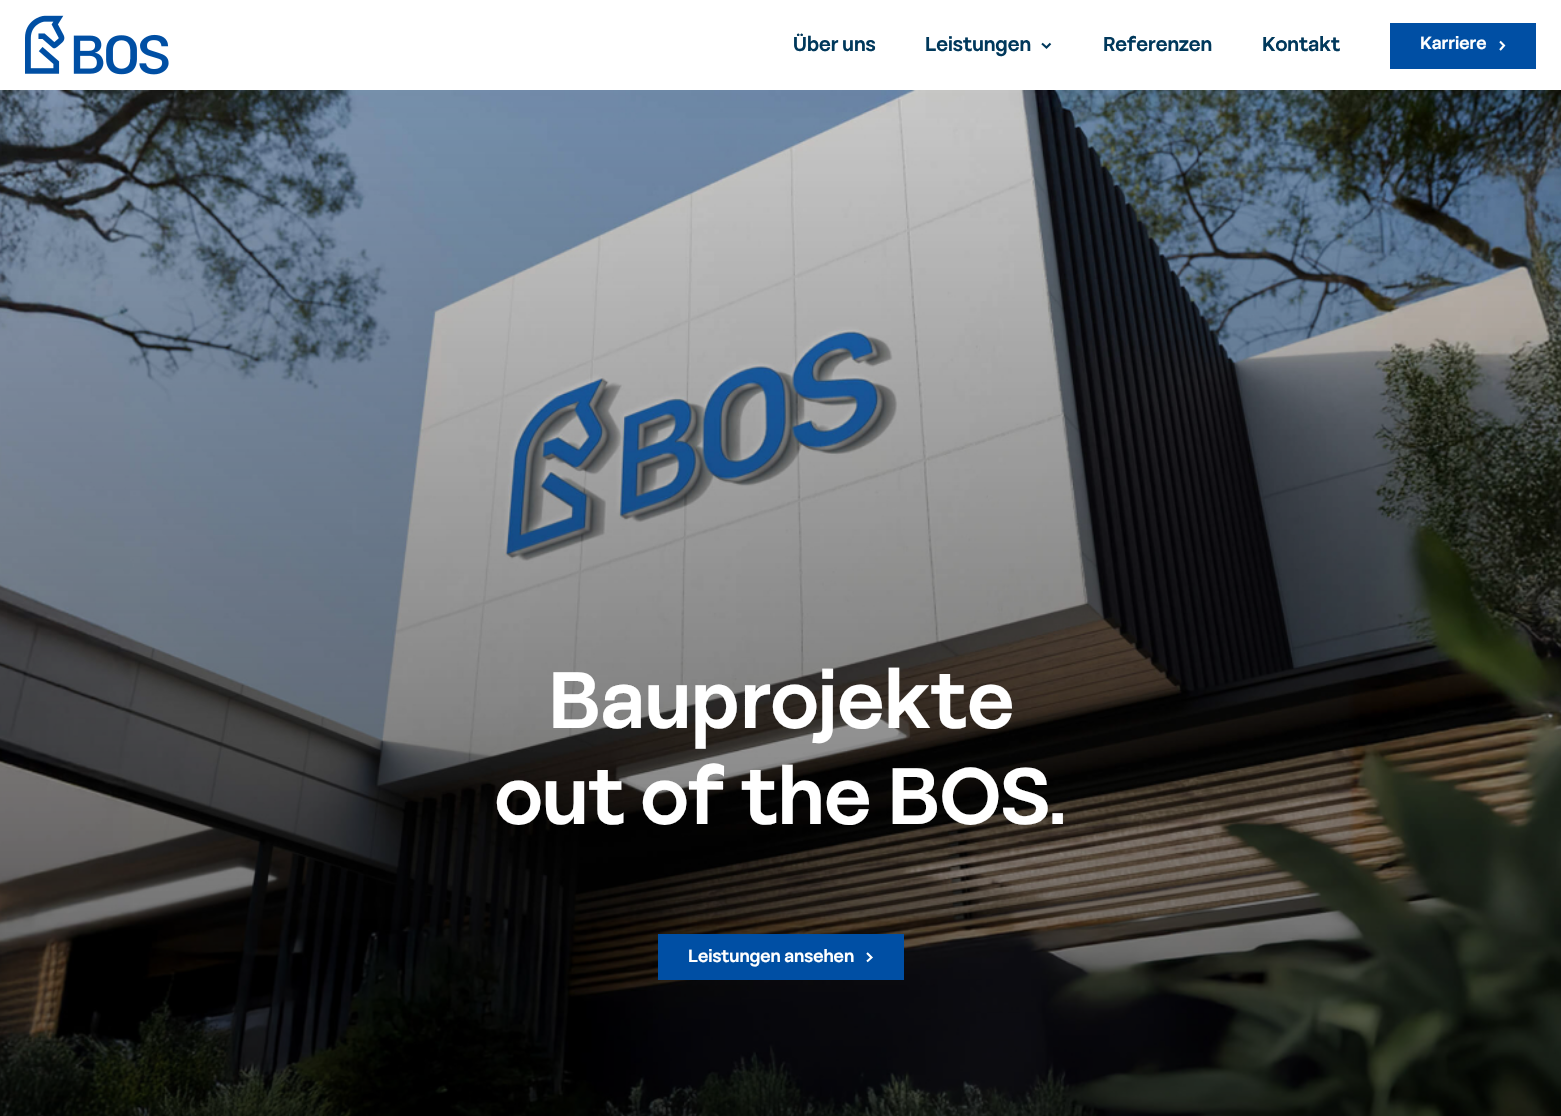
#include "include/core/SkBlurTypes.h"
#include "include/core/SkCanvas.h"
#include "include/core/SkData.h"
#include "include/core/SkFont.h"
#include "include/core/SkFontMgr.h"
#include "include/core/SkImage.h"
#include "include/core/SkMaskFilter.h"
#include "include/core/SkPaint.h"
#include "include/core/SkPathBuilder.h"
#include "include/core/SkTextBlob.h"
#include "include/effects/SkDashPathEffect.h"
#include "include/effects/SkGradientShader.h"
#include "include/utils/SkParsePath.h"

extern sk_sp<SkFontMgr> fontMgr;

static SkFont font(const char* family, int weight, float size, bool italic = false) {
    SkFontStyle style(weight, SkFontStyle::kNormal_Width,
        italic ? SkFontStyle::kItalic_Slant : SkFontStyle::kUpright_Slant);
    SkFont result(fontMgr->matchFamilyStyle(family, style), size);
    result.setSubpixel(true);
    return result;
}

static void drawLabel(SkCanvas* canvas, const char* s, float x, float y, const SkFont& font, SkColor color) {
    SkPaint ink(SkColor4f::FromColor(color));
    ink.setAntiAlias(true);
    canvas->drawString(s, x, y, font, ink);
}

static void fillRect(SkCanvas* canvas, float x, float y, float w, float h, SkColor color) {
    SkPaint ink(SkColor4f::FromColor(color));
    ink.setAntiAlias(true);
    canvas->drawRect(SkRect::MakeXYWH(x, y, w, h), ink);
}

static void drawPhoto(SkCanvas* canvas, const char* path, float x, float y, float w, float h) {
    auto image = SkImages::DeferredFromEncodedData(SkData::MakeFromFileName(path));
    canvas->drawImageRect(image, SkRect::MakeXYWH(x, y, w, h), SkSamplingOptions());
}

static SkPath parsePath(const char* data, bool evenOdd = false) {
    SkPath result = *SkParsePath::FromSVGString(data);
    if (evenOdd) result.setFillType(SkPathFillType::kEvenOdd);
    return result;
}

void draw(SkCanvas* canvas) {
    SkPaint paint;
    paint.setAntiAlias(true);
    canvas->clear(0xFFFFFFFF);
    drawPhoto(canvas, "assets/img1.png", 25, 15, 144, 60);
    SkFont font1 = font("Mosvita", 700, 20);
    drawLabel(canvas, "Über uns", 793, 51, font1, 0xFF00385B);
    drawLabel(canvas, "Leistungen", 925, 51, font1, 0xFF00385B);
    paint.setStroke(true);
    paint.setStrokeWidth(2.1f);
    paint.setColor(0xFF00385B);
    canvas->drawPath(parsePath("M1042 43.5L1046.5 47.5L1050.5 43.5"), paint);
    drawLabel(canvas, "Referenzen", 1103, 51, font1, 0xFF00385B);
    drawLabel(canvas, "Kontakt", 1262, 51, font1, 0xFF00385B);
    fillRect(canvas, 1390, 23, 146, 46, 0xFF004FA4);
    SkFont font2 = font("Mosvita", 700, 17.5f);
    drawLabel(canvas, "Karriere", 1420, 49, font2, 0xFFFFFFFF);
    paint.setColor(0xFFFFFFFF);
    canvas->drawPath(parsePath("M1500 50L1504 45.5L1500 41.5"), paint);
    drawPhoto(canvas, "assets/img2.png", 0, 90, 1561, 1026);
    SkFont font3 = font("Mosvita", 700, 80);
    drawLabel(canvas, "Bauprojekte", 548, 728, font3, 0xFFFFFFFF);
    drawLabel(canvas, "out of the BOS.", 495, 824, font3, 0xFFFFFFFF);
    fillRect(canvas, 658, 934, 246, 46, 0xFF004FA4);
    drawLabel(canvas, "Leistungen ansehen", 688, 962, font2, 0xFFFFFFFF);
    canvas->drawPath(parsePath("M867 961.5L871.5 957.5L867 953"), paint);
}
